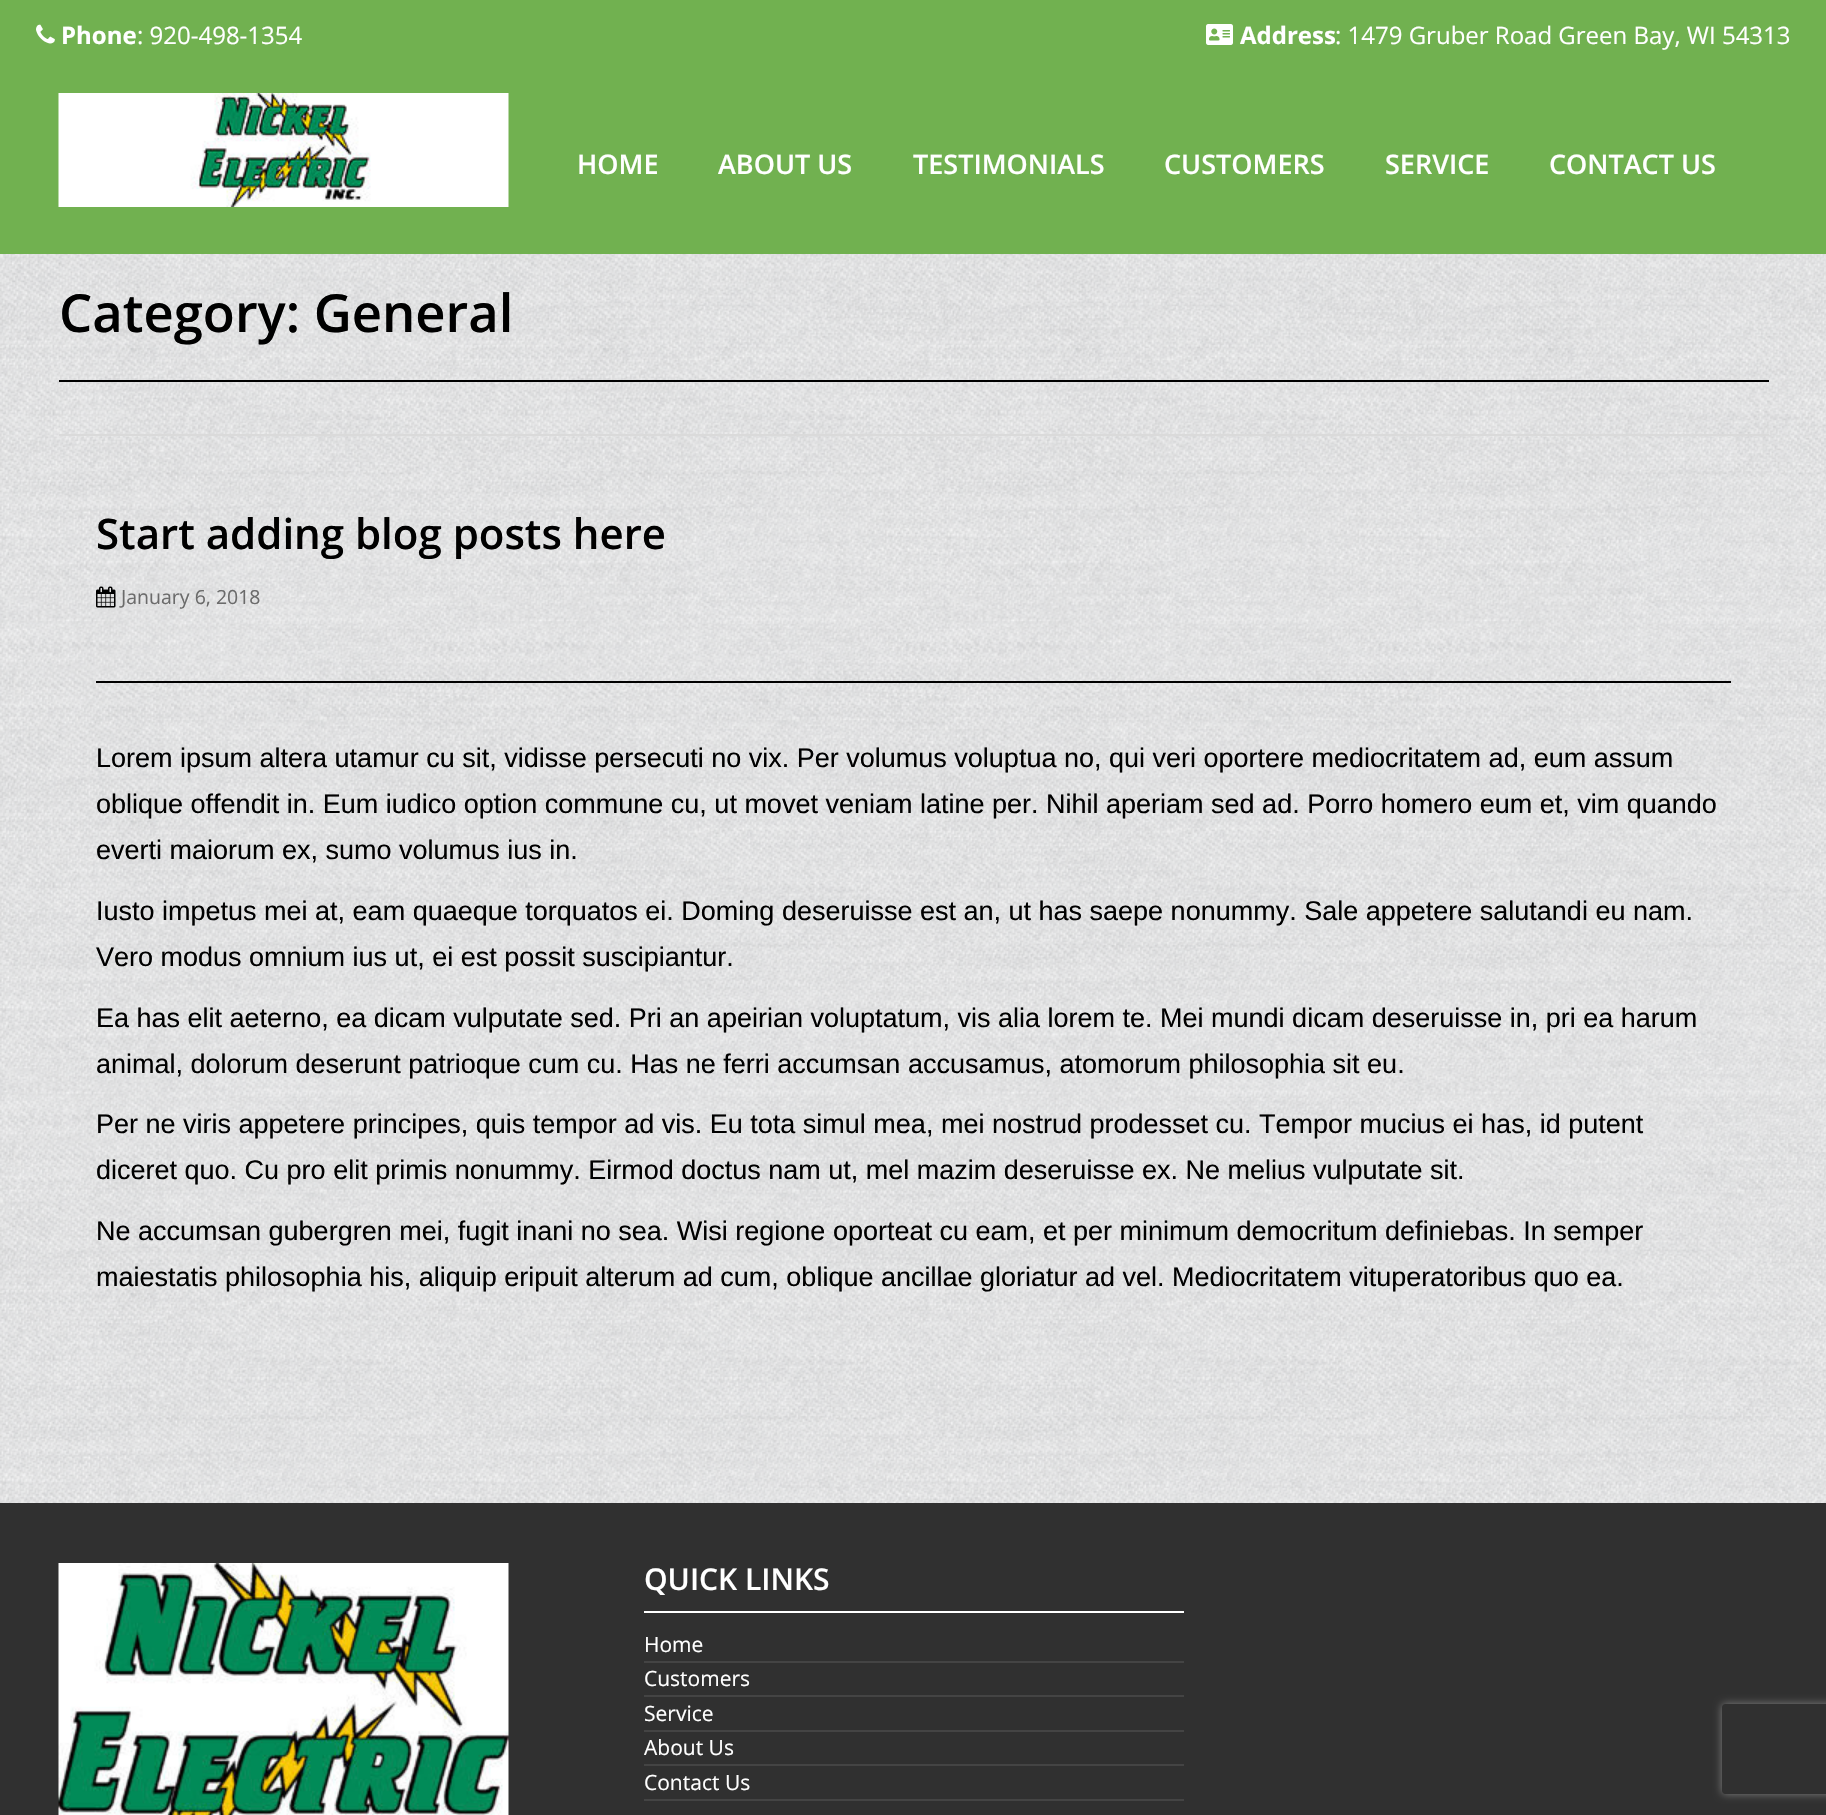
#include "include/core/SkBlurTypes.h"
#include "include/core/SkCanvas.h"
#include "include/core/SkData.h"
#include "include/core/SkFont.h"
#include "include/core/SkFontMgr.h"
#include "include/core/SkImage.h"
#include "include/core/SkMaskFilter.h"
#include "include/core/SkPaint.h"
#include "include/core/SkPathBuilder.h"
#include "include/core/SkTextBlob.h"
#include "include/effects/SkDashPathEffect.h"
#include "include/effects/SkGradientShader.h"
#include "include/utils/SkParsePath.h"

extern sk_sp<SkFontMgr> fontMgr;

static SkFont font(const char* family, int weight, float size, bool italic = false) {
    SkFontStyle style(weight, SkFontStyle::kNormal_Width,
        italic ? SkFontStyle::kItalic_Slant : SkFontStyle::kUpright_Slant);
    SkFont result(fontMgr->matchFamilyStyle(family, style), size);
    result.setSubpixel(true);
    return result;
}

static void drawLabel(SkCanvas* canvas, const char* s, float x, float y, const SkFont& font, SkColor color) {
    SkPaint ink(SkColor4f::FromColor(color));
    ink.setAntiAlias(true);
    canvas->drawString(s, x, y, font, ink);
}

static void fillRect(SkCanvas* canvas, float x, float y, float w, float h, SkColor color) {
    SkPaint ink(SkColor4f::FromColor(color));
    ink.setAntiAlias(true);
    canvas->drawRect(SkRect::MakeXYWH(x, y, w, h), ink);
}

static void drawPhoto(SkCanvas* canvas, const char* path, float x, float y, float w, float h) {
    auto image = SkImages::DeferredFromEncodedData(SkData::MakeFromFileName(path));
    canvas->drawImageRect(image, SkRect::MakeXYWH(x, y, w, h), SkSamplingOptions());
}

static SkPath parsePath(const char* data, bool evenOdd = false) {
    SkPath result = *SkParsePath::FromSVGString(data);
    if (evenOdd) result.setFillType(SkPathFillType::kEvenOdd);
    return result;
}

void draw(SkCanvas* canvas) {
    SkPaint paint;
    paint.setAntiAlias(true);
    canvas->clear(0xFFFFFFFF);
    drawPhoto(canvas, "assets/img1.png", 0, 254, 1826, 1249);
    fillRect(canvas, 0, 0, 1826, 254, 0xFF71B150);
    drawPhoto(canvas, "assets/img2.png", 36, 24, 19, 20);
    SkFont font1 = font("Open Sans", 700, 24);
    drawLabel(canvas, "Phone", 61, 44, font1, 0xFFFFFFFF);
    SkFont font2 = font("Open Sans", 400, 24);
    drawLabel(canvas, ": 920-498-1354", 137, 44, font2, 0xFFFFFFFF);
    drawPhoto(canvas, "assets/img3.png", 1206, 24, 27, 21);
    drawLabel(canvas, "Address", 1240, 44, font1, 0xFFFFFFFF);
    drawLabel(canvas, ": 1479 Gruber Road Green Bay, WI 54313", 1335, 44, font2, 0xFFFFFFFF);
    drawPhoto(canvas, "assets/img4.png", 58, 93, 451, 114);
    SkFont font3 = font("Open Sans", 600, 27);
    drawLabel(canvas, "HOME", 577, 174, font3, 0xFFFFFFFF);
    drawLabel(canvas, "ABOUT US", 718, 174, font3, 0xFFFFFFFF);
    drawLabel(canvas, "TESTIMONIALS", 913, 174, font3, 0xFFFFFFFF);
    drawLabel(canvas, "CUSTOMERS", 1164, 174, font3, 0xFFFFFFFF);
    drawLabel(canvas, "SERVICE", 1385, 174, font3, 0xFFFFFFFF);
    drawLabel(canvas, "CONTACT US", 1549, 174, font3, 0xFFFFFFFF);
    fillRect(canvas, 59, 380, 1710, 2, 0xFF000000);
    SkFont font4 = font("Open Sans", 600, 52.5f);
    drawLabel(canvas, "Category: General", 59, 332, font4, 0xFF000000);
    fillRect(canvas, 59, 434, 1710, 2, 0xFFDADADA);
    fillRect(canvas, 96, 681, 1635, 2, 0xFF000000);
    SkFont font5 = font("Open Sans", 600, 42);
    drawLabel(canvas, "Start adding blog posts here", 96, 549, font5, 0xFF000000);
    drawPhoto(canvas, "assets/img5.png", 96, 586, 20, 22);
    SkFont font6 = font("Open Sans", 400, 19.5f);
    drawLabel(canvas, "January 6, 2018", 121, 604, font6, 0xFF6B6B6B);
    SkFont font7 = font("Liberation Sans", 400, 27);
    drawLabel(canvas, "Lorem ipsum altera utamur cu sit, vidisse persecuti no vix. Per volumus voluptua no, qui veri oportere mediocritatem ad, eum assum", 96, 767, font7, 0xFF000000);
    drawLabel(canvas, "oblique offendit in. Eum iudico option commune cu, ut movet veniam latine per. Nihil aperiam sed ad. Porro homero eum et, vim quando", 96, 813, font7, 0xFF000000);
    drawLabel(canvas, "everti maiorum ex, sumo volumus ius in.", 96, 859, font7, 0xFF000000);
    drawLabel(canvas, "Iusto impetus mei at, eam quaeque torquatos ei. Doming deseruisse est an, ut has saepe nonummy. Sale appetere salutandi eu nam.", 96, 920, font7, 0xFF000000);
    drawLabel(canvas, "Vero modus omnium ius ut, ei est possit suscipiantur.", 96, 966, font7, 0xFF000000);
    drawLabel(canvas, "Ea has elit aeterno, ea dicam vulputate sed. Pri an apeirian voluptatum, vis alia lorem te. Mei mundi dicam deseruisse in, pri ea harum", 96, 1027, font7, 0xFF000000);
    drawLabel(canvas, "animal, dolorum deserunt patrioque cum cu. Has ne ferri accumsan accusamus, atomorum philosophia sit eu.", 96, 1073, font7, 0xFF000000);
    drawLabel(canvas, "Per ne viris appetere principes, quis tempor ad vis. Eu tota simul mea, mei nostrud prodesset cu. Tempor mucius ei has, id putent", 96, 1133, font7, 0xFF000000);
    drawLabel(canvas, "diceret quo. Cu pro elit primis nonummy. Eirmod doctus nam ut, mel mazim deseruisse ex. Ne melius vulputate sit.", 96, 1179, font7, 0xFF000000);
    drawLabel(canvas, "Ne accumsan gubergren mei, fugit inani no sea. Wisi regione oporteat cu eam, et per minimum democritum definiebas. In semper", 96, 1240, font7, 0xFF000000);
    drawLabel(canvas, "maiestatis philosophia his, aliquip eripuit alterum ad cum, oblique ancillae gloriatur ad vel. Mediocritatem vituperatoribus quo ea.", 96, 1286, font7, 0xFF000000);
    fillRect(canvas, 0, 1503, 1826, 312, 0xFF303030);
    drawPhoto(canvas, "assets/img6.png", 58, 1563, 451, 252);
    fillRect(canvas, 644, 1611, 540, 2, 0xFFFFFFFF);
    SkFont font8 = font("Open Sans", 600, 30);
    drawLabel(canvas, "QUICK LINKS", 644, 1590, font8, 0xFFFFFFFF);
    fillRect(canvas, 644, 1661, 540, 2, 0xFF444444);
    SkFont font9 = font("Open Sans", 400, 21);
    drawLabel(canvas, "Home", 644, 1652, font9, 0xFFFFFFFF);
    fillRect(canvas, 644, 1695, 540, 2, 0xFF444444);
    drawLabel(canvas, "Customers", 644, 1686, font9, 0xFFFFFFFF);
    fillRect(canvas, 644, 1730, 540, 2, 0xFF444444);
    drawLabel(canvas, "Service", 644, 1721, font9, 0xFFFFFFFF);
    fillRect(canvas, 644, 1764, 540, 2, 0xFF444444);
    drawLabel(canvas, "About Us", 644, 1755, font9, 0xFFFFFFFF);
    fillRect(canvas, 644, 1799, 540, 2, 0xFF444444);
    drawLabel(canvas, "Contact Us", 644, 1790, font9, 0xFFFFFFFF);
    canvas->save();
    canvas->clipPath(parsePath("M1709 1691H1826V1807H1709ZM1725 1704H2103C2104.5 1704 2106 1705.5 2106 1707V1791C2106 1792.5 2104.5 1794 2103 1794H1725C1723.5 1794 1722 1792.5 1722 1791V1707C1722 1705.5 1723.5 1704 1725 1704Z", true), true);
    paint.setColor(0xFF808080);
    paint.setMaskFilter(SkMaskFilter::MakeBlur(kNormal_SkBlurStyle, 4));
    canvas->drawRoundRect(SkRect::MakeXYWH(1722, 1704, 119, 90), 3, 3, paint);
    paint.setMaskFilter(nullptr);
    canvas->restore();
}
